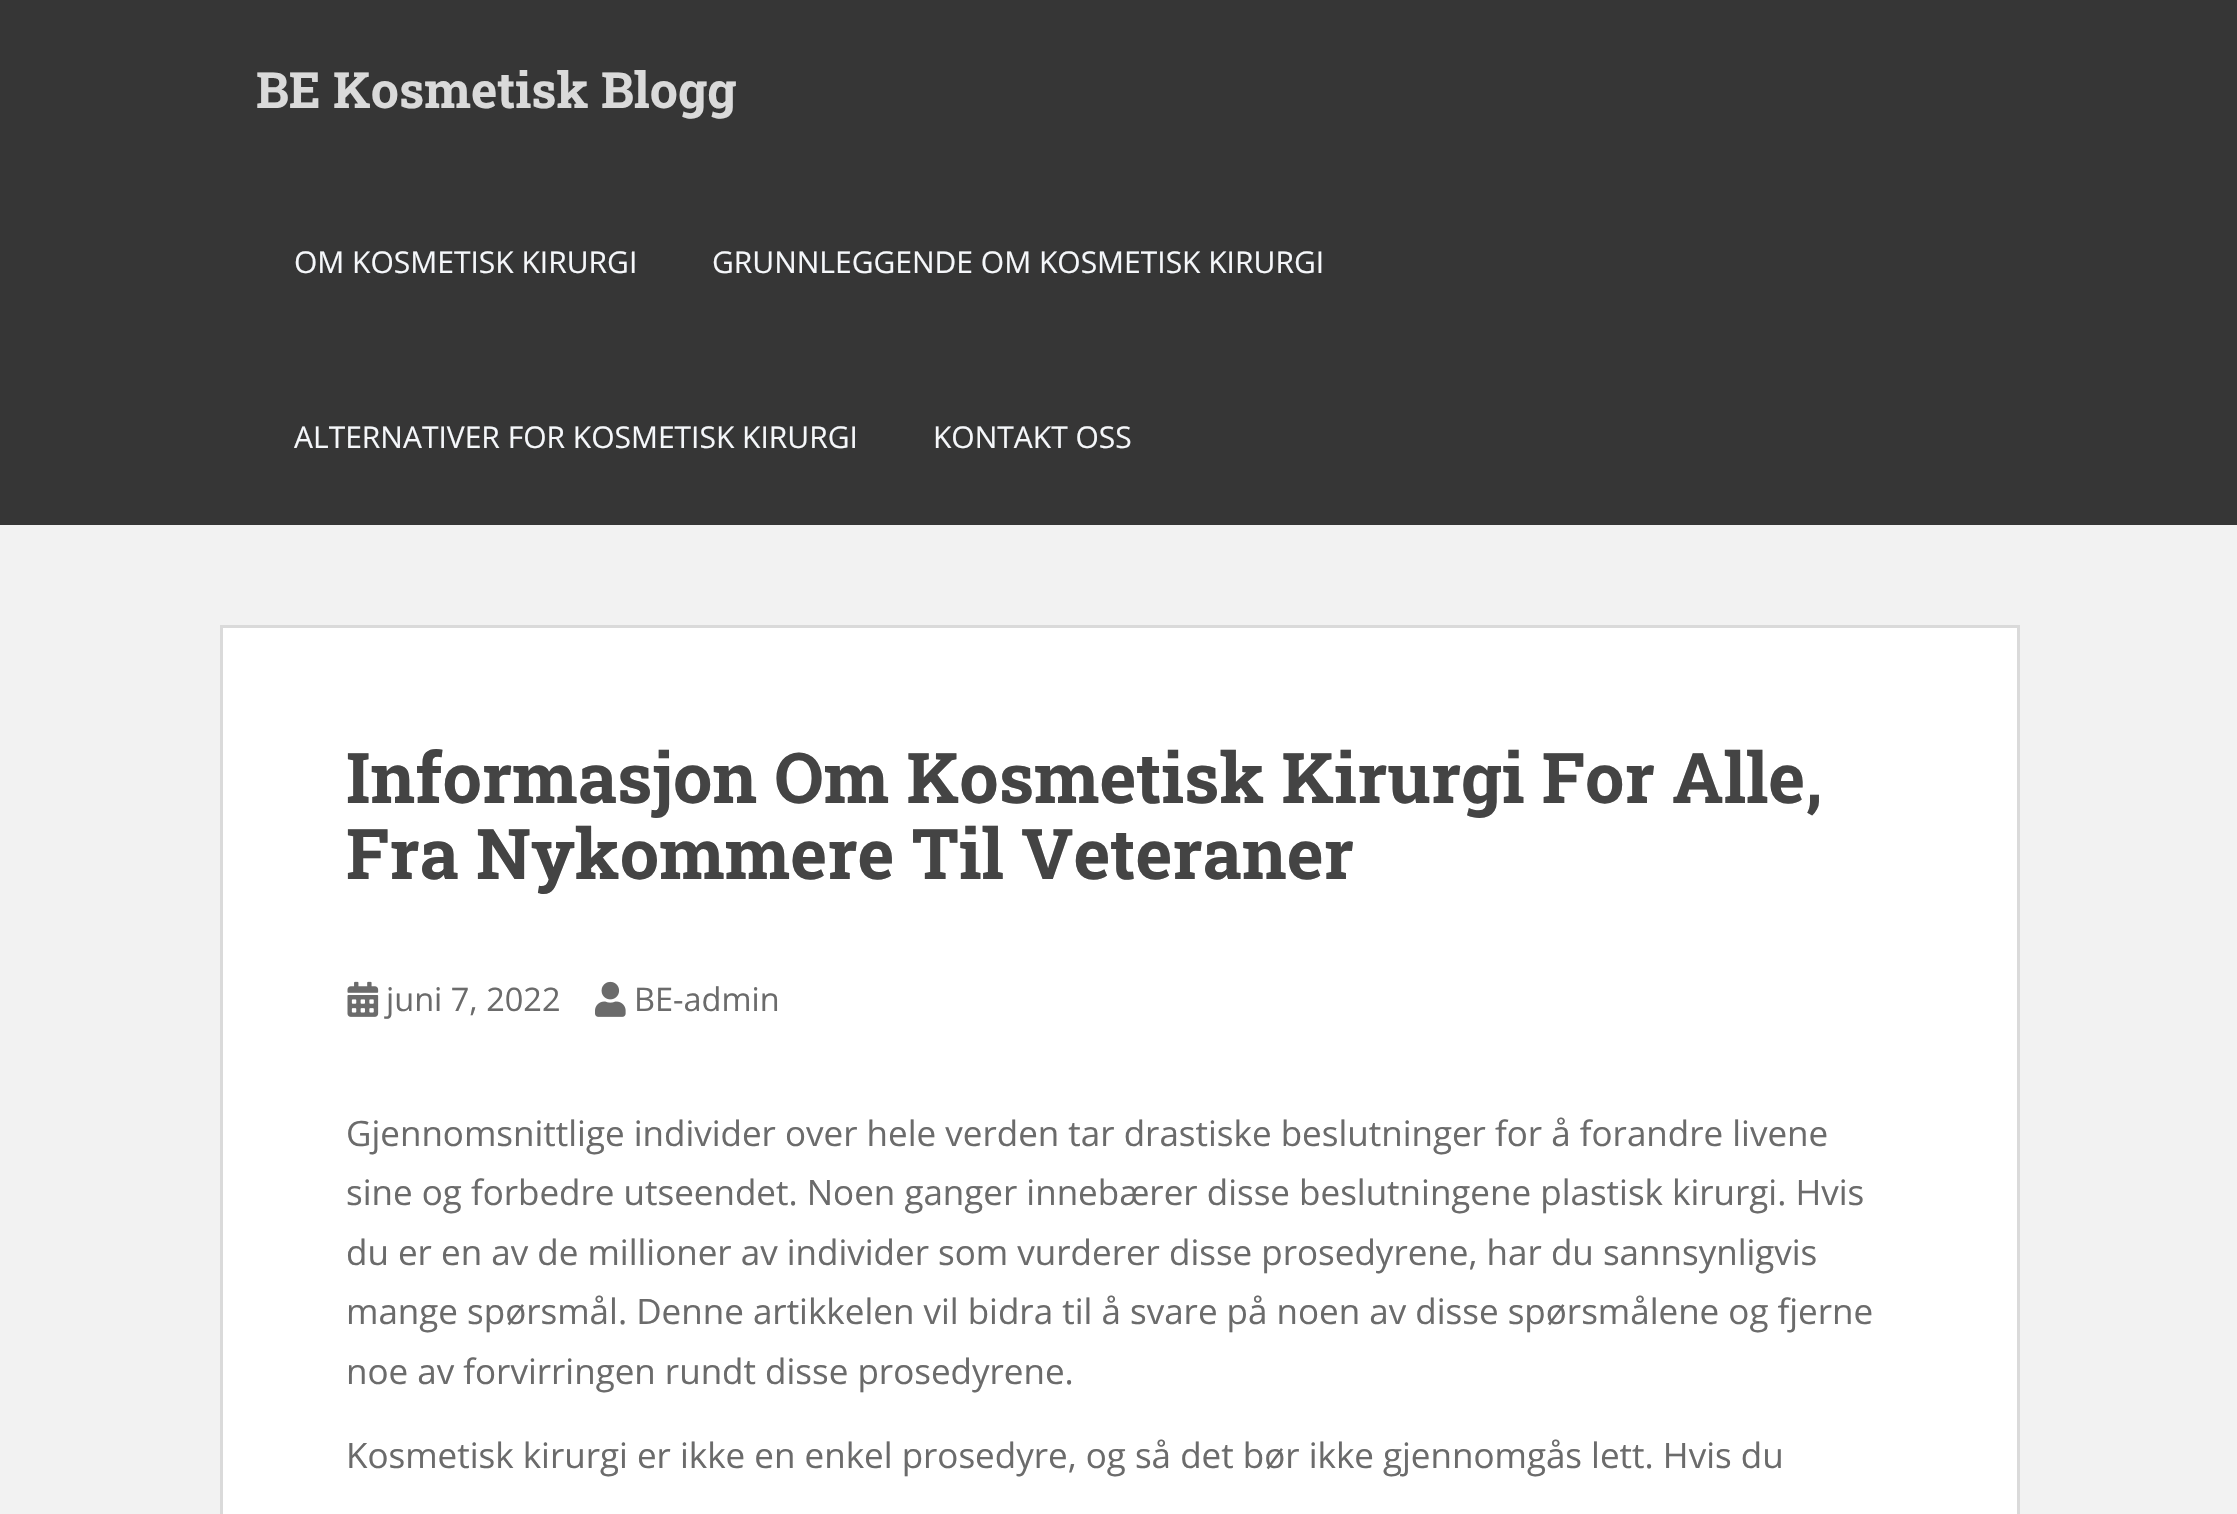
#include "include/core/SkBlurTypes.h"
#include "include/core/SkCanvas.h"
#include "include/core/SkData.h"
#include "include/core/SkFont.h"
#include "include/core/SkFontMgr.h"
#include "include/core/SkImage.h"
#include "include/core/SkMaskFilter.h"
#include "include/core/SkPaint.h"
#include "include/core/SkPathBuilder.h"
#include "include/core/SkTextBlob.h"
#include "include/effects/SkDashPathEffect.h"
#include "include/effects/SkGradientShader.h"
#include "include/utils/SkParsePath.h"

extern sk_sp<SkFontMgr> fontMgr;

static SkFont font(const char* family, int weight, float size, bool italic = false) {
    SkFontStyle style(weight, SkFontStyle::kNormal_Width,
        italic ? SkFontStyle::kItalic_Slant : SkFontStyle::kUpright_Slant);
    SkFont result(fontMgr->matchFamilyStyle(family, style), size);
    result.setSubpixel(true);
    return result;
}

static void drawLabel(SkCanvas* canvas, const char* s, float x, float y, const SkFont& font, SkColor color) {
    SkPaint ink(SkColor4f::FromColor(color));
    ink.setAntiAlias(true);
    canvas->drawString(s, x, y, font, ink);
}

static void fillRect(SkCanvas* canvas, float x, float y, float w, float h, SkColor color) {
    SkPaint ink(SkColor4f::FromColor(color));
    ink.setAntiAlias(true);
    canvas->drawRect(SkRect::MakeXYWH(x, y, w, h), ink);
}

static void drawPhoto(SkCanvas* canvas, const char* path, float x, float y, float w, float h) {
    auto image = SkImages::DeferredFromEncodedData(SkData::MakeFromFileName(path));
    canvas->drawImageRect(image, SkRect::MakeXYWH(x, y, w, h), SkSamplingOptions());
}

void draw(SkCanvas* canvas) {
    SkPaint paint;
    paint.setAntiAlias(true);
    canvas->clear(0xFFF2F2F2);
    fillRect(canvas, 0, 0, 2237, 525, 0xFF363636);
    SkFont font1 = font("Roboto Slab", 700, 50);
    drawLabel(canvas, "BE Kosmetisk Blogg", 256, 108, font1, 0xFFDADADA);
    SkFont font2 = font("Open Sans", 400, 30);
    drawLabel(canvas, "OM KOSMETISK KIRURGI", 294, 273, font2, 0xFFF5F7FA);
    drawLabel(canvas, "GRUNNLEGGENDE OM KOSMETISK KIRURGI", 712, 273, font2, 0xFFF5F7FA);
    drawLabel(canvas, "ALTERNATIVER FOR KOSMETISK KIRURGI", 294, 448, font2, 0xFFF5F7FA);
    drawLabel(canvas, "KONTAKT OSS", 933, 448, font2, 0xFFF5F7FA);
    paint.setColor(0xFFFFFFFF);
    canvas->drawRect(SkRect::MakeXYWH(221.5f, 626.5f, 1797, 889), paint);
    paint.setStroke(true);
    paint.setStrokeWidth(3);
    paint.setColor(0xFFDADADA);
    canvas->drawRect(SkRect::MakeXYWH(221.5f, 626.5f, 1797, 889), paint);
    SkFont font3 = font("Roboto Slab", 700, 70);
    drawLabel(canvas, "Informasjon Om Kosmetisk Kirurgi For Alle,", 346, 803, font3, 0xFF444444);
    drawLabel(canvas, "Fra Nykommere Til Veteraner", 346, 879, font3, 0xFF444444);
    drawPhoto(canvas, "assets/img1.png", 347, 981, 32, 36);
    SkFont font4 = font("Open Sans", 400, 32.5f);
    drawLabel(canvas, "juni 7, 2022", 386, 1011, font4, 0xFF6B6B6B);
    drawPhoto(canvas, "assets/img2.png", 595, 981, 31, 36);
    drawLabel(canvas, "BE-admin", 634, 1011, font4, 0xFF6B6B6B);
    SkFont font5 = font("Open Sans", 400, 35);
    drawLabel(canvas, "Gjennomsnittlige individer over hele verden tar drastiske beslutninger for å forandre livene", 346, 1146, font5, 0xFF6B6B6B);
    drawLabel(canvas, "sine og forbedre utseendet. Noen ganger innebærer disse beslutningene plastisk kirurgi. Hvis", 346, 1205, font5, 0xFF6B6B6B);
    drawLabel(canvas, "du er en av de millioner av individer som vurderer disse prosedyrene, har du sannsynligvis", 346, 1265, font5, 0xFF6B6B6B);
    drawLabel(canvas, "mange spørsmål. Denne artikkelen vil bidra til å svare på noen av disse spørsmålene og fjerne", 346, 1324, font5, 0xFF6B6B6B);
    drawLabel(canvas, "noe av forvirringen rundt disse prosedyrene.", 346, 1384, font5, 0xFF6B6B6B);
    drawLabel(canvas, "Kosmetisk kirurgi er ikke en enkel prosedyre, og så det bør ikke gjennomgås lett. Hvis du", 346, 1468, font5, 0xFF6B6B6B);
}
